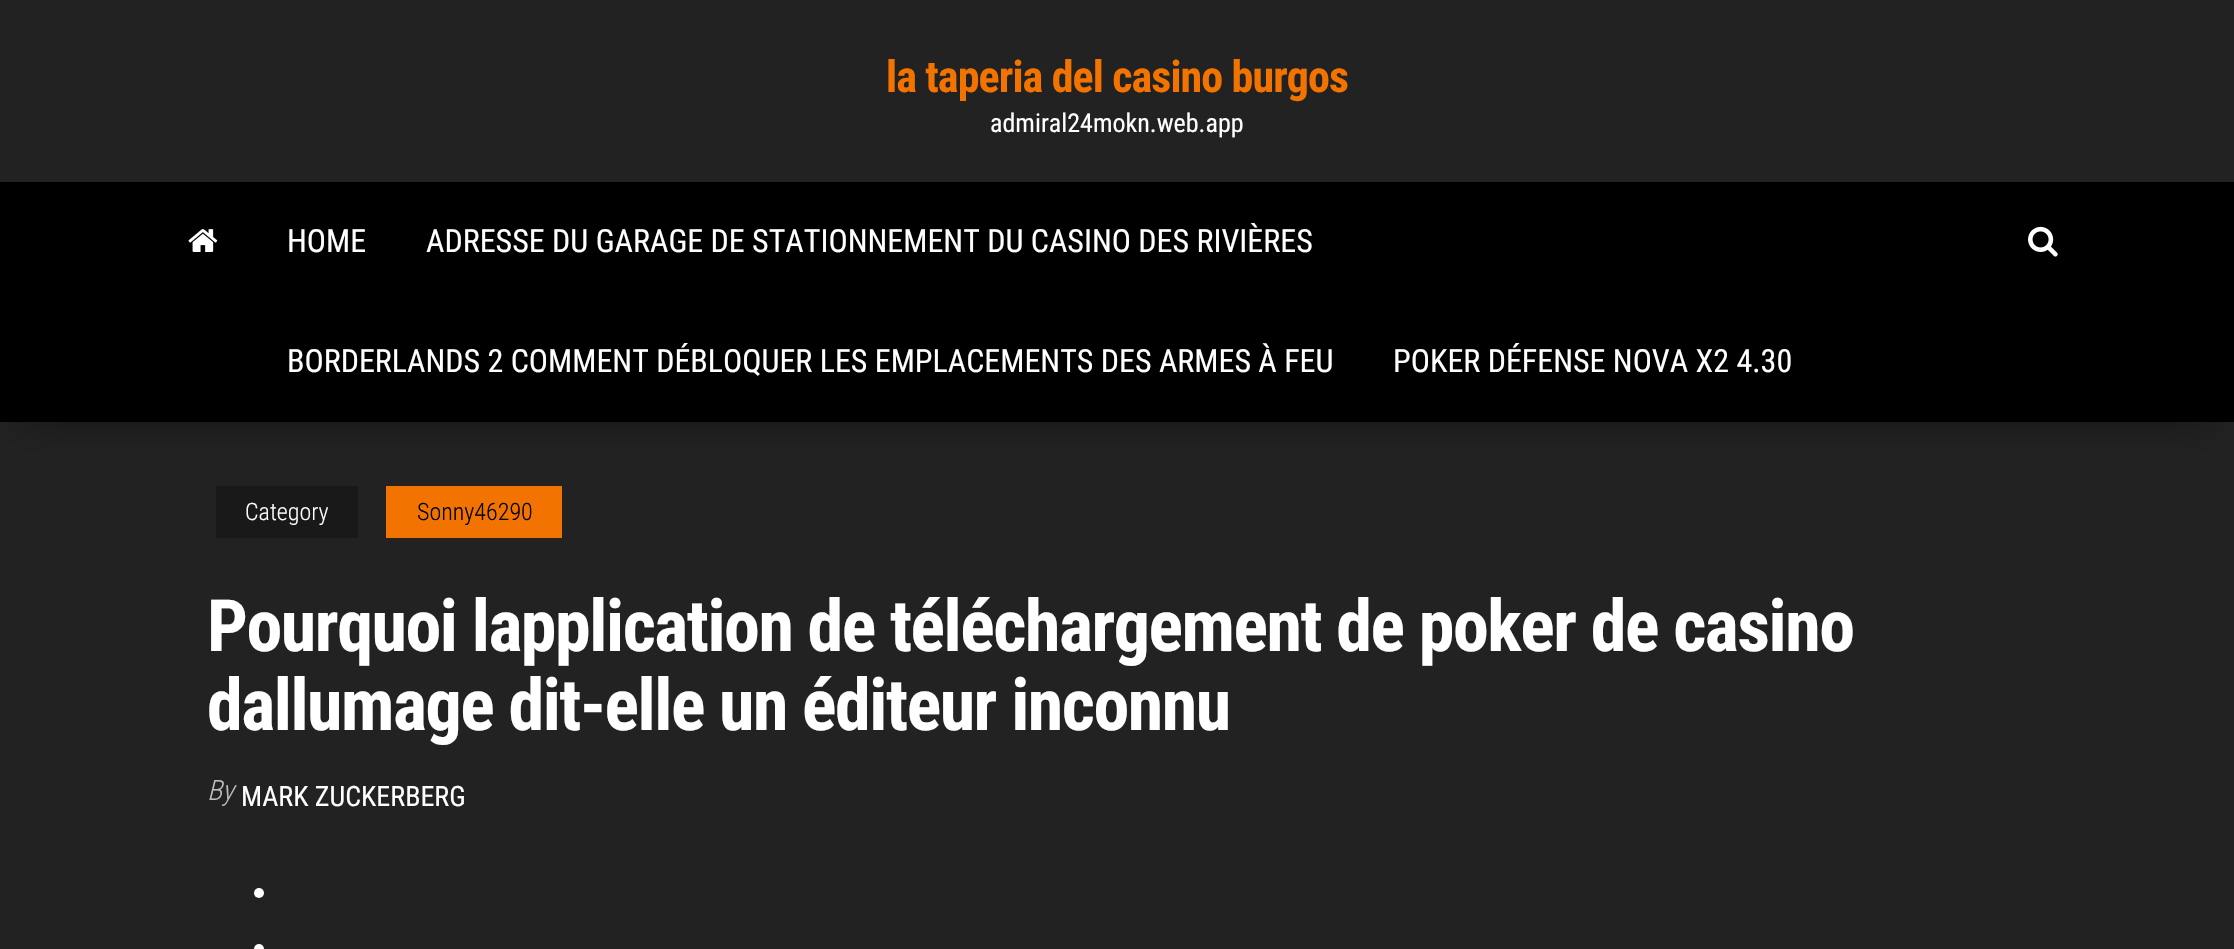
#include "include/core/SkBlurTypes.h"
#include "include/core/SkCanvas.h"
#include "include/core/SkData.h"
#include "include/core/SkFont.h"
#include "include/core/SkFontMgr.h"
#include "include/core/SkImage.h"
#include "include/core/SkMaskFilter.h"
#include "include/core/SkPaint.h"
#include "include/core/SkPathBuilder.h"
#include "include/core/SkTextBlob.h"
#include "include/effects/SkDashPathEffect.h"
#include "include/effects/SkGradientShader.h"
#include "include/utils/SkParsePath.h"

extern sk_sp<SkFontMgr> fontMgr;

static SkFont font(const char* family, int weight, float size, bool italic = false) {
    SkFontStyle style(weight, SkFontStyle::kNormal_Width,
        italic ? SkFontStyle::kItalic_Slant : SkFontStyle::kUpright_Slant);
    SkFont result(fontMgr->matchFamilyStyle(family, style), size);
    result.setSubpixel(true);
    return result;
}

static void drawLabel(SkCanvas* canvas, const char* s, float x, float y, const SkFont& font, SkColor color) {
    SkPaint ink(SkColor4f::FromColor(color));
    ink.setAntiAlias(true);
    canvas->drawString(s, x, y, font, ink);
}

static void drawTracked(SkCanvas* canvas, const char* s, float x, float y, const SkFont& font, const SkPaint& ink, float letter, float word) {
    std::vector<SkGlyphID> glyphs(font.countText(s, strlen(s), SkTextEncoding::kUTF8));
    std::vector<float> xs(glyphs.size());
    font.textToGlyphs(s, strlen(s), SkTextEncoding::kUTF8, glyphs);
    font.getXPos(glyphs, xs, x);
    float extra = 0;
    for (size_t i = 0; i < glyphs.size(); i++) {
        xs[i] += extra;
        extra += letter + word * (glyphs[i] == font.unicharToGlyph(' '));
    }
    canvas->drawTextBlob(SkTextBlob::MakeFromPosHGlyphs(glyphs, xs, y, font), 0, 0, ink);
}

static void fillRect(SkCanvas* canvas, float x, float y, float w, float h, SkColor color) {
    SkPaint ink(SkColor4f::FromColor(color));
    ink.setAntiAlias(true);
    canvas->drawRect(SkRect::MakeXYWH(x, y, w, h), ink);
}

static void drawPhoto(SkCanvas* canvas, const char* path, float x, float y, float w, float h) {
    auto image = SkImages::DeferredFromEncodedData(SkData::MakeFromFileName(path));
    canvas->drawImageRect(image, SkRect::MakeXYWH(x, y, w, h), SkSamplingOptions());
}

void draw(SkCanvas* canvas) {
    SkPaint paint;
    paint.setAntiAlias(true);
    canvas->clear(0xFF222222);
    SkFont font1 = font("Roboto Condensed", 700, 44);
    paint.setColor(0xFFF27300);
    drawTracked(canvas, "la taperia del casino burgos", 886, 92, font1, paint, -0.9f, 0);
    SkFont font2 = font("Roboto Condensed", 400, 26);
    drawLabel(canvas, "admiral24mokn.web.app", 990, 132, font2, 0xFFFFFFFF);
    paint.setColor(0x6B000000);
    paint.setMaskFilter(SkMaskFilter::MakeBlur(kNormal_SkBlurStyle, 20));
    canvas->drawRect(SkRect::MakeXYWH(24, 226, 2186, 192), paint);
    paint.setMaskFilter(nullptr);
    fillRect(canvas, 0, 182, 2234, 240, 0xFF000000);
    drawPhoto(canvas, "assets/img1.png", 188, 229, 30, 23);
    SkFont font3 = font("Roboto Condensed", 400, 32);
    drawLabel(canvas, "HOME", 287, 252, font3, 0xFFFFFFFF);
    drawLabel(canvas, "ADRESSE DU GARAGE DE STATIONNEMENT DU CASINO DES RIVIÈRES", 426, 252, font3, 0xFFFFFFFF);
    drawLabel(canvas, "BORDERLANDS 2 COMMENT DÉBLOQUER LES EMPLACEMENTS DES ARMES À FEU", 287, 372, font3, 0xFFFFFFFF);
    drawLabel(canvas, "POKER DÉFENSE NOVA X2 4.30", 1393, 372, font3, 0xFFFFFFFF);
    drawPhoto(canvas, "assets/img2.png", 2028, 226, 30, 31);
    fillRect(canvas, 216, 486, 142, 52, 0xFF191919);
    SkFont font4 = font("Roboto Condensed", 300, 24);
    drawLabel(canvas, "Category", 245, 520, font4, 0xFFFFFFFF);
    fillRect(canvas, 386, 486, 176, 52, 0xFFF27300);
    drawLabel(canvas, "Sonny46290", 417, 520, font4, 0xFF000000);
    SkFont font5 = font("Roboto Condensed", 700, 72);
    paint.setColor(0xFFFFFFFF);
    drawTracked(canvas, "Pourquoi lapplication de téléchargement de poker de casino", 207, 651, font5, paint, -1.45f, 0);
    drawTracked(canvas, "dallumage dit-elle un éditeur inconnu", 207, 730, font5, paint, -1.45f, 0);
    SkFont font6 = font("Roboto Condensed", 300, 28, true);
    drawLabel(canvas, "By", 207, 800, font6, 0xFFBDBDBD);
    SkFont font7 = font("Roboto Condensed", 400, 28);
    drawLabel(canvas, "MARK ZUCKERBERG", 241, 806, font7, 0xFFFFFFFF);
    canvas->drawCircle(259, 893, 5, paint);
    canvas->drawCircle(259, 949, 5, paint);
}
